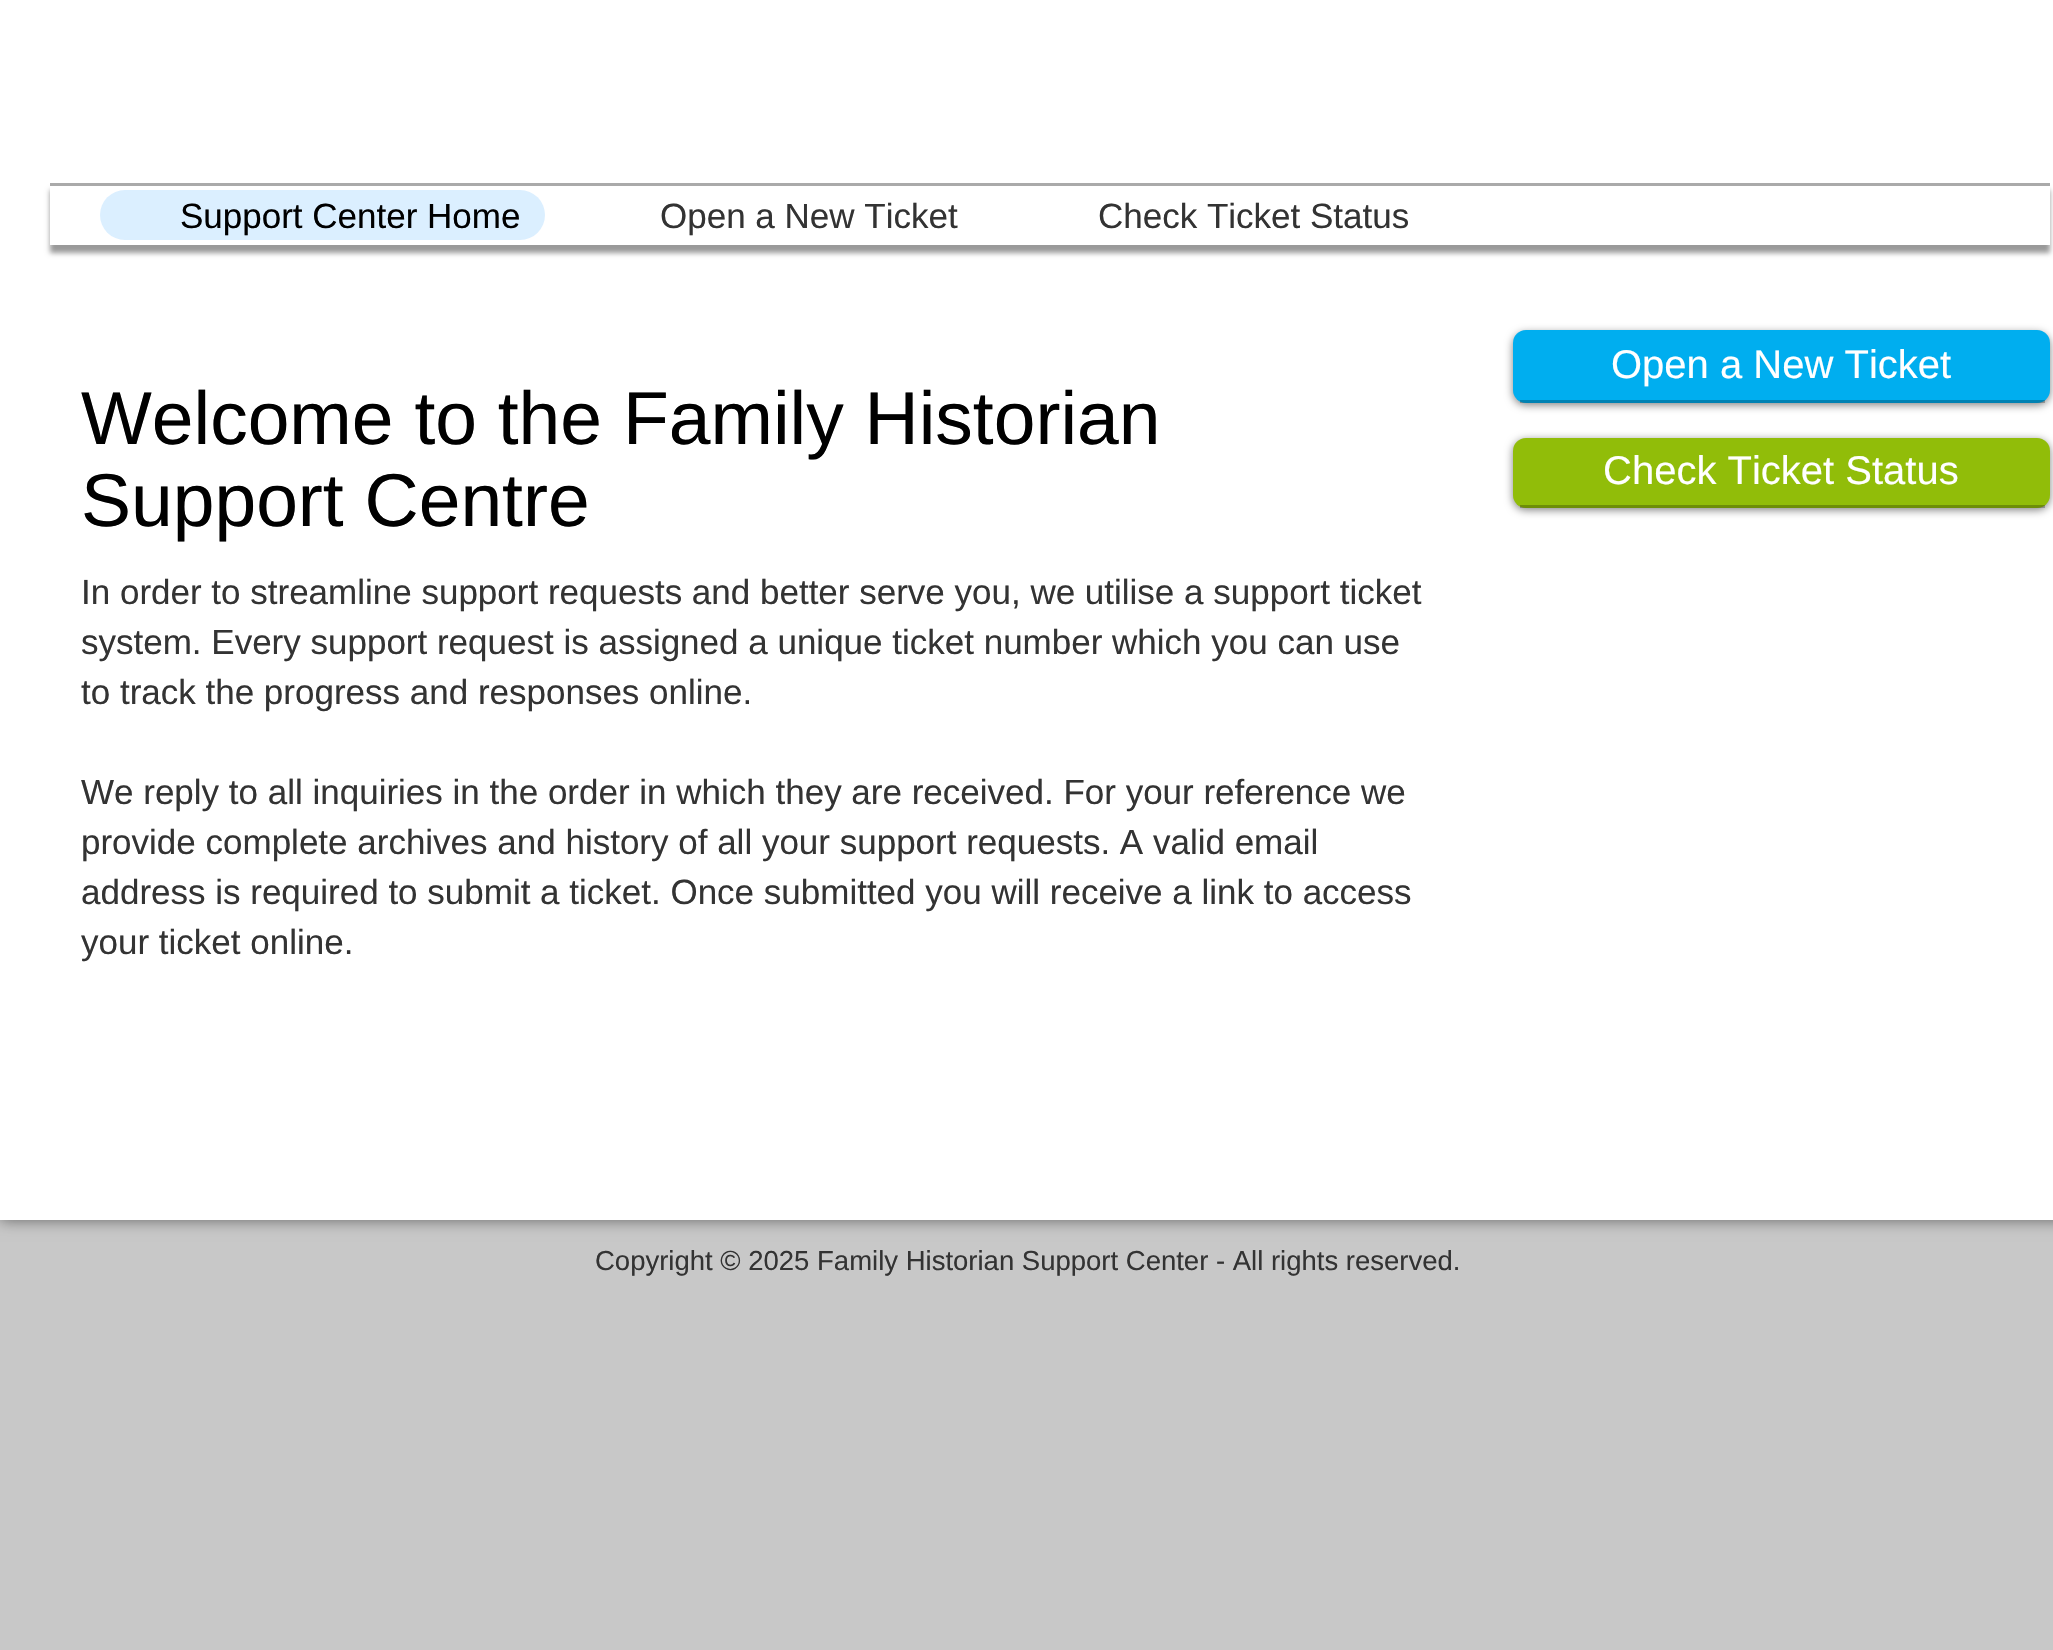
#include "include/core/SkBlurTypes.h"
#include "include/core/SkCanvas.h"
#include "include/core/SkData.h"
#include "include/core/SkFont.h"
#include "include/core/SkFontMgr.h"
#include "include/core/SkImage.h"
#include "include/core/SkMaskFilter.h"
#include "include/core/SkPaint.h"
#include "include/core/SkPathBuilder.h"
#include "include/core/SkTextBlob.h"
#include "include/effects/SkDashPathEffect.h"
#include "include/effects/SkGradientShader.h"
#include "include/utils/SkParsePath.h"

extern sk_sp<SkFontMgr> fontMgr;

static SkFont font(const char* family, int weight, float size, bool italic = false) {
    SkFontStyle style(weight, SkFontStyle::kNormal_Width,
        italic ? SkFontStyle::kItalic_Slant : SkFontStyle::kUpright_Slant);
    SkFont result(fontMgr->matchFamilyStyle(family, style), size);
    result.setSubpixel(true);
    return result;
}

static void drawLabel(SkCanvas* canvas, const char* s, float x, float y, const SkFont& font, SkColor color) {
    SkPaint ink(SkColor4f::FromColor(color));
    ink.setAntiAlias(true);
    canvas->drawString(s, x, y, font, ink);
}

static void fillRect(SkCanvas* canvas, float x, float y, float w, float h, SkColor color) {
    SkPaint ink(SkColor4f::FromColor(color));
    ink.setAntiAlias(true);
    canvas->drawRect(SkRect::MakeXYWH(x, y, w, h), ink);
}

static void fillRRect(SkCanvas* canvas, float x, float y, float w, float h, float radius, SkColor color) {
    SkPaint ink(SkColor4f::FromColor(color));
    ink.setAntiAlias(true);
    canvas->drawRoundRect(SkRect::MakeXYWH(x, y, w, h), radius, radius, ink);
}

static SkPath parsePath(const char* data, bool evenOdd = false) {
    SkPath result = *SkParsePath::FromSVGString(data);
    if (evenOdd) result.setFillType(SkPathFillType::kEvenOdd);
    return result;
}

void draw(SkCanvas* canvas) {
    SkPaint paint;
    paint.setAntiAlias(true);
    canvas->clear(0xFFC8C8C8);
    paint.setColor(0x80000000);
    paint.setMaskFilter(SkMaskFilter::MakeBlur(kNormal_SkBlurStyle, 7.5f));
    canvas->drawRect(SkRect::MakeXYWH(0, 0, 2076, 1220), paint);
    paint.setMaskFilter(nullptr);
    fillRect(canvas, 0, 0, 2053, 1220, 0xFFFFFFFF);
    canvas->save();
    canvas->clipPath(parsePath("M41 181H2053V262H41ZM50 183H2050V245H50Z", true), true);
    paint.setColor(0x66000000);
    paint.setMaskFilter(SkMaskFilter::MakeBlur(kNormal_SkBlurStyle, 2.5f));
    canvas->drawRect(SkRect::MakeXYWH(50, 190, 2000, 63), paint);
    paint.setMaskFilter(nullptr);
    canvas->restore();
    fillRect(canvas, 50, 183, 2000, 3, 0xFFAAAAAA);
    fillRRect(canvas, 100, 190, 445, 50, 25, 0xFFDBEFFF);
    SkFont font1 = font("Liberation Sans", 400, 35);
    drawLabel(canvas, "Support Center Home", 180, 228, font1, 0xFF000000);
    drawLabel(canvas, "Open a New Ticket", 660, 228, font1, 0xFF333333);
    drawLabel(canvas, "Check Ticket Status", 1098, 228, font1, 0xFF333333);
    SkFont font2 = font("Liberation Sans", 400, 75);
    drawLabel(canvas, "Welcome to the Family Historian", 81, 444, font2, 0xFF000000);
    drawLabel(canvas, "Support Centre", 81, 526, font2, 0xFF000000);
    drawLabel(canvas, "In order to streamline support requests and better serve you, we utilise a support ticket", 81, 604, font1, 0xFF333333);
    drawLabel(canvas, "system. Every support request is assigned a unique ticket number which you can use", 81, 654, font1, 0xFF333333);
    drawLabel(canvas, "to track the progress and responses online.", 81, 704, font1, 0xFF333333);
    drawLabel(canvas, "We reply to all inquiries in the order in which they are received. For your reference we", 81, 804, font1, 0xFF333333);
    drawLabel(canvas, "provide complete archives and history of all your support requests. A valid email", 81, 854, font1, 0xFF333333);
    drawLabel(canvas, "address is required to submit a ticket. Once submitted you will receive a link to access", 81, 904, font1, 0xFF333333);
    drawLabel(canvas, "your ticket online.", 81, 954, font1, 0xFF333333);
    paint.setColor(0x80000000);
    paint.setMaskFilter(SkMaskFilter::MakeBlur(kNormal_SkBlurStyle, 4));
    canvas->drawRoundRect(SkRect::MakeXYWH(1513, 333, 537, 72), 13, 13, paint);
    paint.setMaskFilter(nullptr);
    fillRRect(canvas, 1513, 330, 537, 73, 13, 0xFF00AEEF);
    fillRect(canvas, 1520, 400, 525, 3, 0x40000000);
    SkFont font3 = font("Liberation Sans", 400, 40);
    drawLabel(canvas, "Open a New Ticket", 1611, 378, font3, 0xFFFFFFFF);
    paint.setMaskFilter(SkMaskFilter::MakeBlur(kNormal_SkBlurStyle, 4));
    canvas->drawRoundRect(SkRect::MakeXYWH(1513, 440, 537, 70), 13, 13, paint);
    paint.setMaskFilter(nullptr);
    fillRRect(canvas, 1513, 438, 537, 70, 13, 0xFF91BD09);
    fillRect(canvas, 1520, 505, 525, 3, 0x40000000);
    drawLabel(canvas, "Check Ticket Status", 1603, 484, font3, 0xFFFFFFFF);
    SkFont font4 = font("Liberation Sans", 400, 27.5f);
    drawLabel(canvas, "Copyright © 2025 Family Historian Support Center - All rights reserved.", 595, 1270, font4, 0xFF333333);
}
